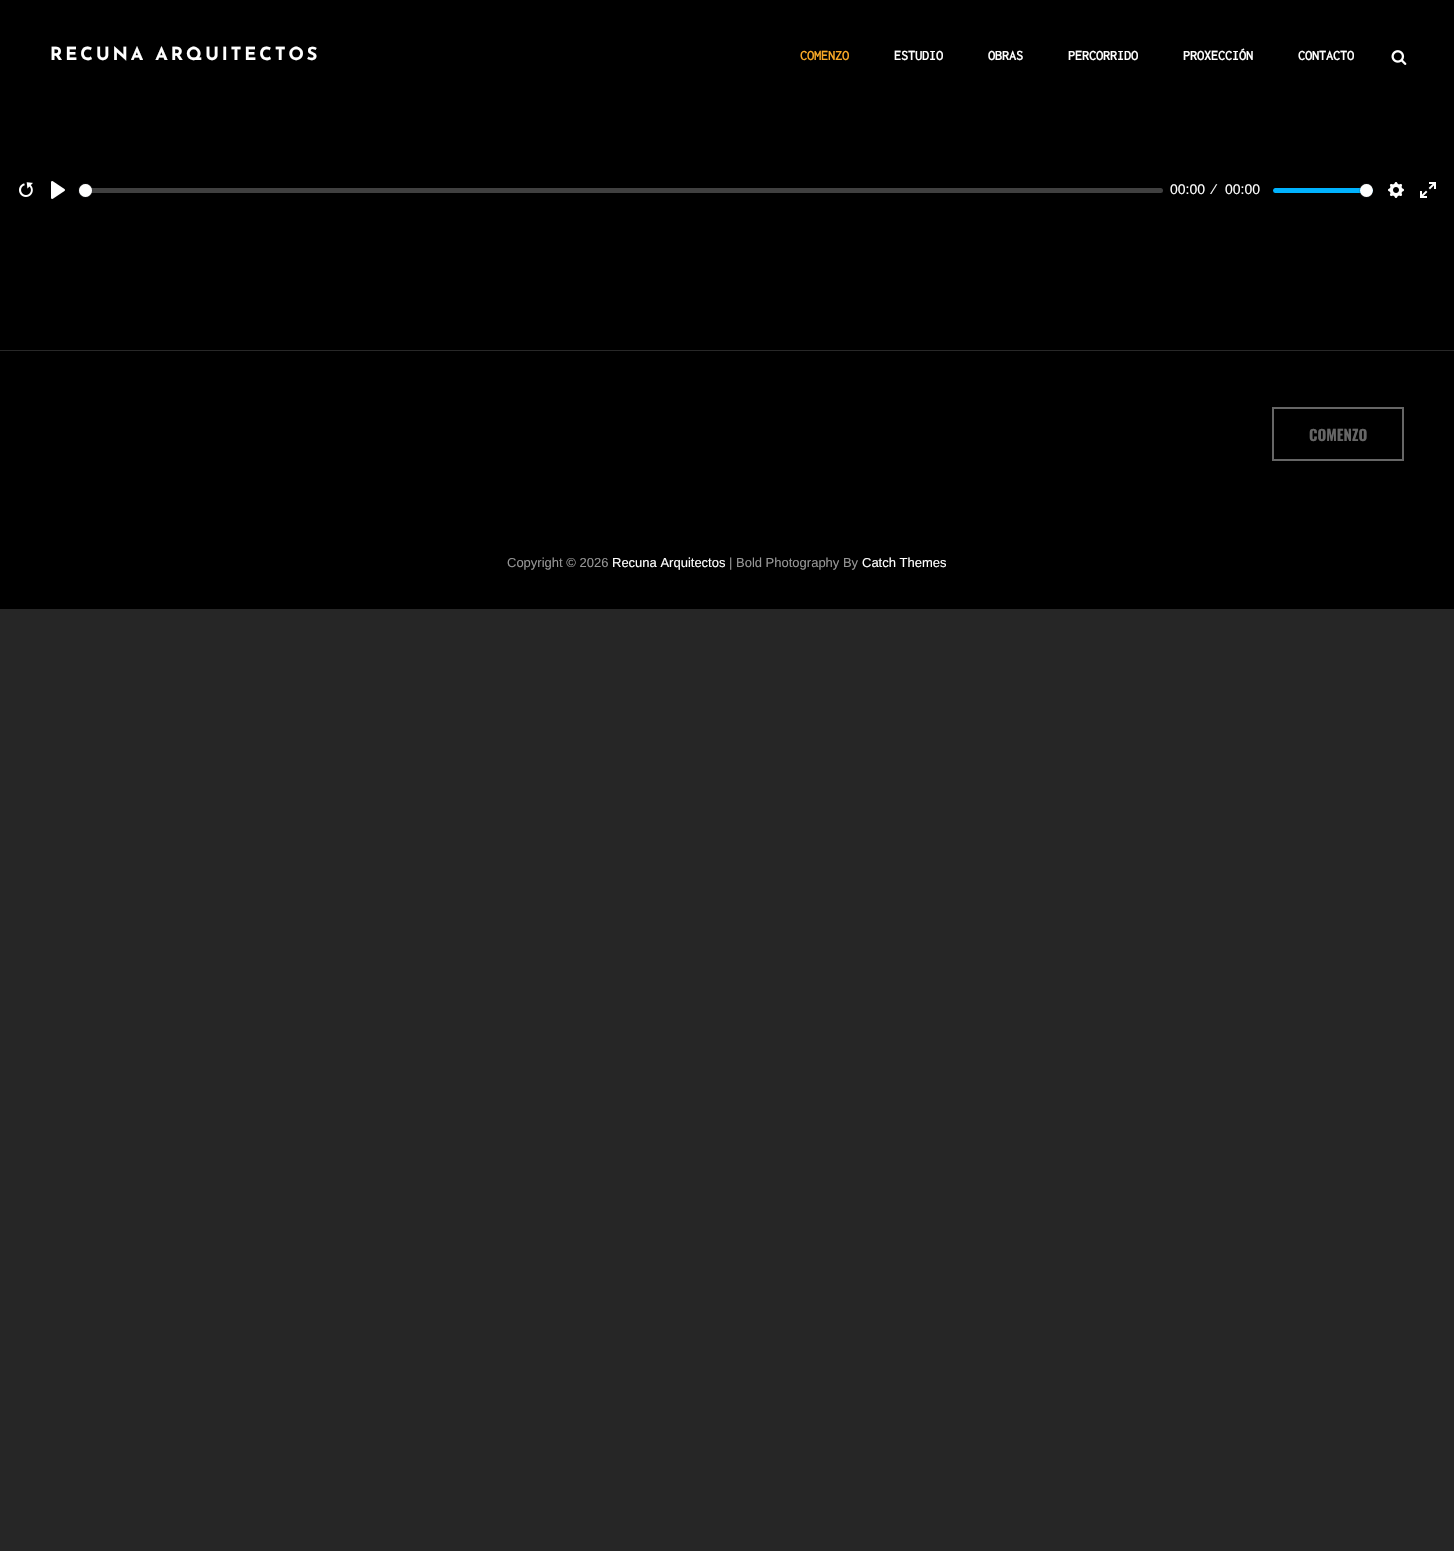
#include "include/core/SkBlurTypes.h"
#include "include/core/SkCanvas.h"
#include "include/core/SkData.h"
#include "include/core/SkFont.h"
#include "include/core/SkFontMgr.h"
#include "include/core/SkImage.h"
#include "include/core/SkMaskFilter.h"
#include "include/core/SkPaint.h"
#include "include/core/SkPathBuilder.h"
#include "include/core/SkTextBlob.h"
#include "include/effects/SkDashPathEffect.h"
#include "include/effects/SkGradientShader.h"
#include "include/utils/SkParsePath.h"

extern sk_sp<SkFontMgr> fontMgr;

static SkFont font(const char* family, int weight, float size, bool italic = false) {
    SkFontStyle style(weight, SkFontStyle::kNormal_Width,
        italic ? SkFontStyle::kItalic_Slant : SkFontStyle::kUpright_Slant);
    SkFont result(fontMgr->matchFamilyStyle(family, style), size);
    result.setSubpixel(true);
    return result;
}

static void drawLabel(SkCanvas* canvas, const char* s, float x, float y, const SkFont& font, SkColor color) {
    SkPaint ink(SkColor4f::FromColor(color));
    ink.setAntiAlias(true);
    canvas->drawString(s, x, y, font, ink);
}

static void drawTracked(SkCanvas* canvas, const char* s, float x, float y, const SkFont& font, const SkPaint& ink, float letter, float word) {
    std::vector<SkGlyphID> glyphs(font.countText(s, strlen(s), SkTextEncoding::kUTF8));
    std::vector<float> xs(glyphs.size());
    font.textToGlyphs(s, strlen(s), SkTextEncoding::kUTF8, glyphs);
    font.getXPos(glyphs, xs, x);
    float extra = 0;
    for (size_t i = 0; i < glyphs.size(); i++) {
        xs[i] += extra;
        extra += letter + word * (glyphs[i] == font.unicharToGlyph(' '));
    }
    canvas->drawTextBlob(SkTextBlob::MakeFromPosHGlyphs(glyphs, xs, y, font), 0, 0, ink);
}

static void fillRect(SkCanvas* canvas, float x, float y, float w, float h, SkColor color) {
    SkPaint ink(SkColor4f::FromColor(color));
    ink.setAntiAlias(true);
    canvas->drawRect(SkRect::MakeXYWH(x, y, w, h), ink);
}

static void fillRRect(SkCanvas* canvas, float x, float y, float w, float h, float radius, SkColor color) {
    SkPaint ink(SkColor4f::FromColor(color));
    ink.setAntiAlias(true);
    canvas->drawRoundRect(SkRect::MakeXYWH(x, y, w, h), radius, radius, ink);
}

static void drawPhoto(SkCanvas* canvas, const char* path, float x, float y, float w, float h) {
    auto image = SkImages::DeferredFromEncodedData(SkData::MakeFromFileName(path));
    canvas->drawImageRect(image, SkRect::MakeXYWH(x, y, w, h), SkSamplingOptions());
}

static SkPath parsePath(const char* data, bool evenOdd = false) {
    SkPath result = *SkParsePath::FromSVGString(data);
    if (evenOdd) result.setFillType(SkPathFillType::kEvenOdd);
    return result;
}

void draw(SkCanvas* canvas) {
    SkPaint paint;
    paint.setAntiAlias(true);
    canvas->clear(0xFF262626);
    fillRect(canvas, 0, 0, 1454, 609, 0xFF000000);
    SkFont font1 = font("Josefin Sans", 700, 18);
    paint.setColor(0xFFFFFFFF);
    drawTracked(canvas, "RECUNA ARQUITECTOS", 50, 60, font1, paint, 3, 0);
    SkFont font2 = font("Inconsolata", 700, 14);
    drawLabel(canvas, "COMENZO", 800, 60, font2, 0xFFF9A926);
    drawLabel(canvas, "ESTUDIO", 894, 60, font2, 0xFFFFFFFF);
    drawLabel(canvas, "OBRAS", 988, 60, font2, 0xFFFFFFFF);
    drawLabel(canvas, "PERCORRIDO", 1068, 60, font2, 0xFFFFFFFF);
    drawLabel(canvas, "PROXECCIÓN", 1183, 60, font2, 0xFFFFFFFF);
    drawLabel(canvas, "CONTACTO", 1298, 60, font2, 0xFFFFFFFF);
    drawPhoto(canvas, "assets/img1.png", 1391, 50, 16, 15);
    drawPhoto(canvas, "assets/img2.png", 78, 183, 1295, 15);
    {
        const SkColor colors[] = {0x00000000, 0xB3000000};
        const float stops[] = {0, 1};
        const SkPoint ends[] = {{727, 139}, {727, 216}};
        paint.setShader(SkGradientShader::MakeLinear(ends, colors, stops, 2, SkTileMode::kClamp));
        paint.setAlpha(255);
    }
    canvas->drawRect(SkRect::MakeXYWH(78, 183, 1295, 15), paint);
    drawPhoto(canvas, "assets/img3.png", 19, 182, 14, 15);
    drawPhoto(canvas, "assets/img4.png", 51, 181, 14, 18);
    fillRRect(canvas, 79, 188, 1084, 5, 2.5f, 0x40FFFFFF);
    paint.setStroke(true);
    paint.setStrokeWidth(1);
    paint.setShader(nullptr);
    paint.setColor(0x3323292F);
    canvas->drawCircle(85.5f, 190.5f, 7, paint);
    paint.setStroke(false);
    paint.setColor(0x26000000);
    paint.setMaskFilter(SkMaskFilter::MakeBlur(kNormal_SkBlurStyle, 0.5f));
    canvas->drawRoundRect(SkRect::MakeXYWH(79, 185, 13, 13), 6.5f, 6.5f, paint);
    paint.setMaskFilter(nullptr);
    paint.setColor(0xFF000000);
    canvas->drawPath(parsePath("M82.5 180.5H88.5L85.5 183.5Z"), paint);
    paint.setColor(0xFFFFFFFF);
    canvas->drawCircle(85.5f, 190.5f, 6.5f, paint);
    SkFont font3 = font("Liberation Sans", 400, 14);
    drawLabel(canvas, "00:00", 1170, 194, font3, 0xFFFFFFFF);
    drawLabel(canvas, "⁄", 1213, 194, font3, 0xFFFFFFFF);
    drawLabel(canvas, "00:00", 1225, 194, font3, 0xFFFFFFFF);
    canvas->save();
    canvas->clipPath(parsePath("M1282.5 181H1363.5C1368.5 181 1373 185.5 1373 190.5C1373 195.5 1368.5 200 1363.5 200H1282.5C1277.5 200 1273 195.5 1273 190.5C1273 185.5 1277.5 181 1282.5 181Z"), true);
    fillRRect(canvas, 1273, 188, 100, 5, 2.5f, 0xFF00B3FF);
    canvas->restore();
    paint.setColor(0x3323292F);
    canvas->drawPath(parsePath("M1366.5 183C1357 183 1356.5 197.5 1366.5 198C1375 198.5 1375.5 183 1366.5 183ZM1366.5 184C1375 184 1375 197 1366.5 197C1358 197 1358 184 1366.5 184Z", true), paint);
    paint.setColor(0x26000000);
    paint.setMaskFilter(SkMaskFilter::MakeBlur(kNormal_SkBlurStyle, 0.5f));
    canvas->drawRoundRect(SkRect::MakeXYWH(1360, 185, 13, 13), 6.5f, 6.5f, paint);
    paint.setMaskFilter(nullptr);
    canvas->save();
    canvas->clipPath(parsePath("M1282.5 181H1363.5C1368.5 181 1373 185.5 1373 190.5C1373 195.5 1368.5 200 1363.5 200H1282.5C1277.5 200 1273 195.5 1273 190.5C1273 185.5 1277.5 181 1282.5 181Z"), true);
    paint.setColor(0xFFFFFFFF);
    canvas->drawCircle(1366.5f, 190.5f, 6.5f, paint);
    canvas->restore();
    drawPhoto(canvas, "assets/img5.png", 1388, 182, 16, 16);
    drawPhoto(canvas, "assets/img6.png", 1420, 182, 16, 16);
    fillRect(canvas, 0, 350, 1454, 1, 0xFF282828);
    paint.setStroke(true);
    paint.setStrokeWidth(2);
    paint.setColor(0xFF666666);
    canvas->drawRect(SkRect::MakeXYWH(1273, 408, 130, 52), paint);
    SkFont font4 = font("Oswald", 700, 15);
    drawLabel(canvas, "COMENZO", 1309, 441, font4, 0xFF666666);
    SkFont font5 = font("Liberation Sans", 400, 13);
    drawLabel(canvas, "Copyright © 2026", 507, 567, font5, 0xFF969696);
    drawLabel(canvas, "Recuna Arquitectos", 612, 567, font5, 0xFFFFFFFF);
    drawLabel(canvas, "| Bold Photography By", 729, 567, font5, 0xFF969696);
    drawLabel(canvas, "Catch Themes", 862, 567, font5, 0xFFFFFFFF);
}
